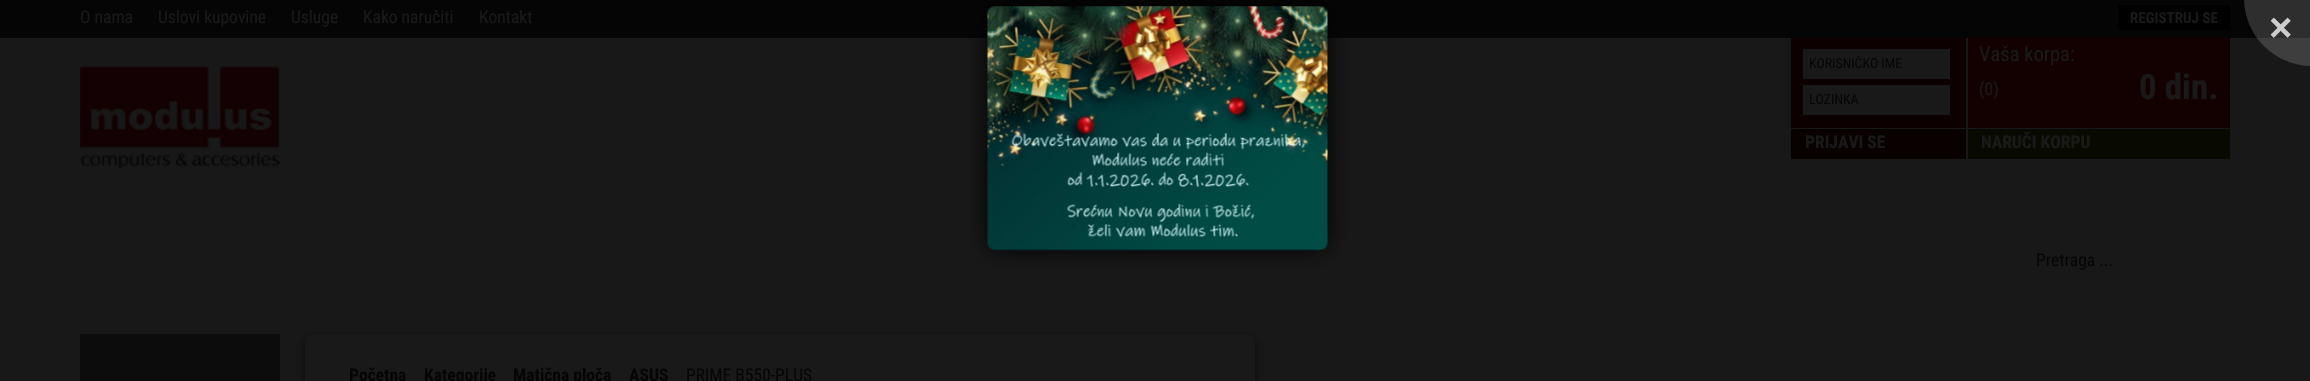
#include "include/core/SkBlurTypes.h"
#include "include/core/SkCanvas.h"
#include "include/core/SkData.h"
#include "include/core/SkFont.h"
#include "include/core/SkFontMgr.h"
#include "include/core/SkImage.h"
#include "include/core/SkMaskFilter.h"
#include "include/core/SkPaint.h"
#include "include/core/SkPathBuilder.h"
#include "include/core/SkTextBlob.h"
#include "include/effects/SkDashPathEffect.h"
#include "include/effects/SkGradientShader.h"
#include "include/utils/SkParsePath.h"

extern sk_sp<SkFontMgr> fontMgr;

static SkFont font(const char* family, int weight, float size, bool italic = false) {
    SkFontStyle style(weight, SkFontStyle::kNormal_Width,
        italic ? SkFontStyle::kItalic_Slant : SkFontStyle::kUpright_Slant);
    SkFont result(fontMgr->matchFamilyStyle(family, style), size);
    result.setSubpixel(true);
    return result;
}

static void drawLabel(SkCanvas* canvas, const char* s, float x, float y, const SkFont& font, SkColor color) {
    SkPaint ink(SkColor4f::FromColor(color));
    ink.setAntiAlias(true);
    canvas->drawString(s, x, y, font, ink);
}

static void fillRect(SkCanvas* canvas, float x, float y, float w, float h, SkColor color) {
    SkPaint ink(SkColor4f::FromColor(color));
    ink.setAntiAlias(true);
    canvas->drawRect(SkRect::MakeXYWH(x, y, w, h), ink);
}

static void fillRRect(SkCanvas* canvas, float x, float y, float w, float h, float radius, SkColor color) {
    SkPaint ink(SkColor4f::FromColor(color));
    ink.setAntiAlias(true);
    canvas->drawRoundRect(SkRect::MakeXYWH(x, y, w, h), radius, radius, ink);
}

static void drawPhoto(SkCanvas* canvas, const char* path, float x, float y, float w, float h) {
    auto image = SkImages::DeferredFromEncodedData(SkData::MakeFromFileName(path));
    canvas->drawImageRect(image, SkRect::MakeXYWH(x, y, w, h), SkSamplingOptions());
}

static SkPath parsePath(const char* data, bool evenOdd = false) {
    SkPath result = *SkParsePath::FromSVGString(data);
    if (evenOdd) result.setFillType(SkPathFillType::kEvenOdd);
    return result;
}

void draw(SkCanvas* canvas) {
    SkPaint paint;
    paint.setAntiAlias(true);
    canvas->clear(0xFF181818);
    fillRect(canvas, 0, 0, 2310, 38, 0xFF050505);
    SkFont font1 = font("Roboto Condensed", 400, 17.5f);
    drawLabel(canvas, "O nama", 80, 23, font1, 0xFF191919);
    drawLabel(canvas, "Uslovi kupovine", 158, 23, font1, 0xFF191919);
    drawLabel(canvas, "Usluge", 291, 23, font1, 0xFF191919);
    drawLabel(canvas, "Kako naručiti", 363, 23, font1, 0xFF191919);
    drawLabel(canvas, "Kontakt", 479, 23, font1, 0xFF191919);
    fillRect(canvas, 2118, 5, 112, 25, 0xFF000000);
    SkFont font2 = font("Roboto Condensed", 700, 15);
    drawLabel(canvas, "REGISTRUJ SE", 2130, 23, font2, 0xFF191919);
    paint.setColor(0xFF000000);
    paint.setMaskFilter(SkMaskFilter::MakeBlur(kNormal_SkBlurStyle, 12.5f));
    canvas->drawRoundRect(SkRect::MakeXYWH(988, 6, 340, 244), 8, 8, paint);
    paint.setMaskFilter(nullptr);
    drawPhoto(canvas, "assets/img1.png", 987, 6, 341, 245);
    paint.setColor(0x29FFFFFF);
    canvas->drawPath(parsePath("M2244 0H2310V66H2312C2274.5 66 2244 35.5 2244-2Z"), paint);
    SkFont font3 = font("Liberation Sans", 700, 40);
    drawLabel(canvas, "×", 2269, 41, font3, 0xFFCDCDCD);
    drawPhoto(canvas, "assets/img2.png", 80, 66, 200, 103);
    fillRect(canvas, 1791, 38, 175, 90, 0xFF0C0000);
    fillRect(canvas, 1803, 49, 147, 30, 0xFF191919);
    canvas->save();
    canvas->clipRect(SkRect::MakeXYWH(1809, 56, 135, 17));
    SkFont font4 = font("Roboto Condensed", 400, 13.75f);
    drawLabel(canvas, "KORISNIČKO IME", 1809, 68, font4, 0xFF050505);
    canvas->restore();
    fillRect(canvas, 1803, 85, 147, 30, 0xFF191919);
    drawLabel(canvas, "LOZINKA", 1809, 104, font4, 0xFF050505);
    fillRect(canvas, 1791, 129, 175, 30, 0xFF090000);
    SkFont font5 = font("Roboto Condensed", 700, 17.5f);
    drawLabel(canvas, "PRIJAVI SE", 1805, 148, font5, 0xFF191919);
    fillRect(canvas, 1968, 38, 262, 90, 0xFF130102);
    SkFont font6 = font("Roboto Condensed", 400, 20.5f);
    drawLabel(canvas, "Vaša korpa:", 1979, 61, font6, 0xFF191919);
    drawLabel(canvas, "(0)", 1979, 95, font1, 0xFF191919);
    SkFont font7 = font("Roboto Condensed", 700, 35);
    drawLabel(canvas, "0 din.", 2139, 99, font7, 0xFF191919);
    fillRect(canvas, 1968, 129, 262, 30, 0xFF080A00);
    drawLabel(canvas, "NARUČI KORPU", 1981, 148, font5, 0xFF191919);
    drawLabel(canvas, "Pretraga ...", 2036, 266, font1, 0xFF050505);
    fillRect(canvas, 80, 334, 200, 47, 0xFF0C0C0C);
    paint.setColor(0x99000000);
    paint.setMaskFilter(SkMaskFilter::MakeBlur(kNormal_SkBlurStyle, 4));
    canvas->drawRoundRect(SkRect::MakeXYWH(305, 336, 950, 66), 9, 9, paint);
    paint.setMaskFilter(nullptr);
    fillRRect(canvas, 305, 334, 950, 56, 9, 0xFF191919);
    drawLabel(canvas, "Početna", 349, 381, font5, 0xFF050505);
    drawLabel(canvas, "Kategorije", 424, 381, font5, 0xFF050505);
    drawLabel(canvas, "Matična ploča", 513, 381, font5, 0xFF050505);
    drawLabel(canvas, "ASUS", 629, 381, font5, 0xFF050505);
    drawLabel(canvas, "PRIME B550-PLUS", 686, 381, font1, 0xFF050505);
}
